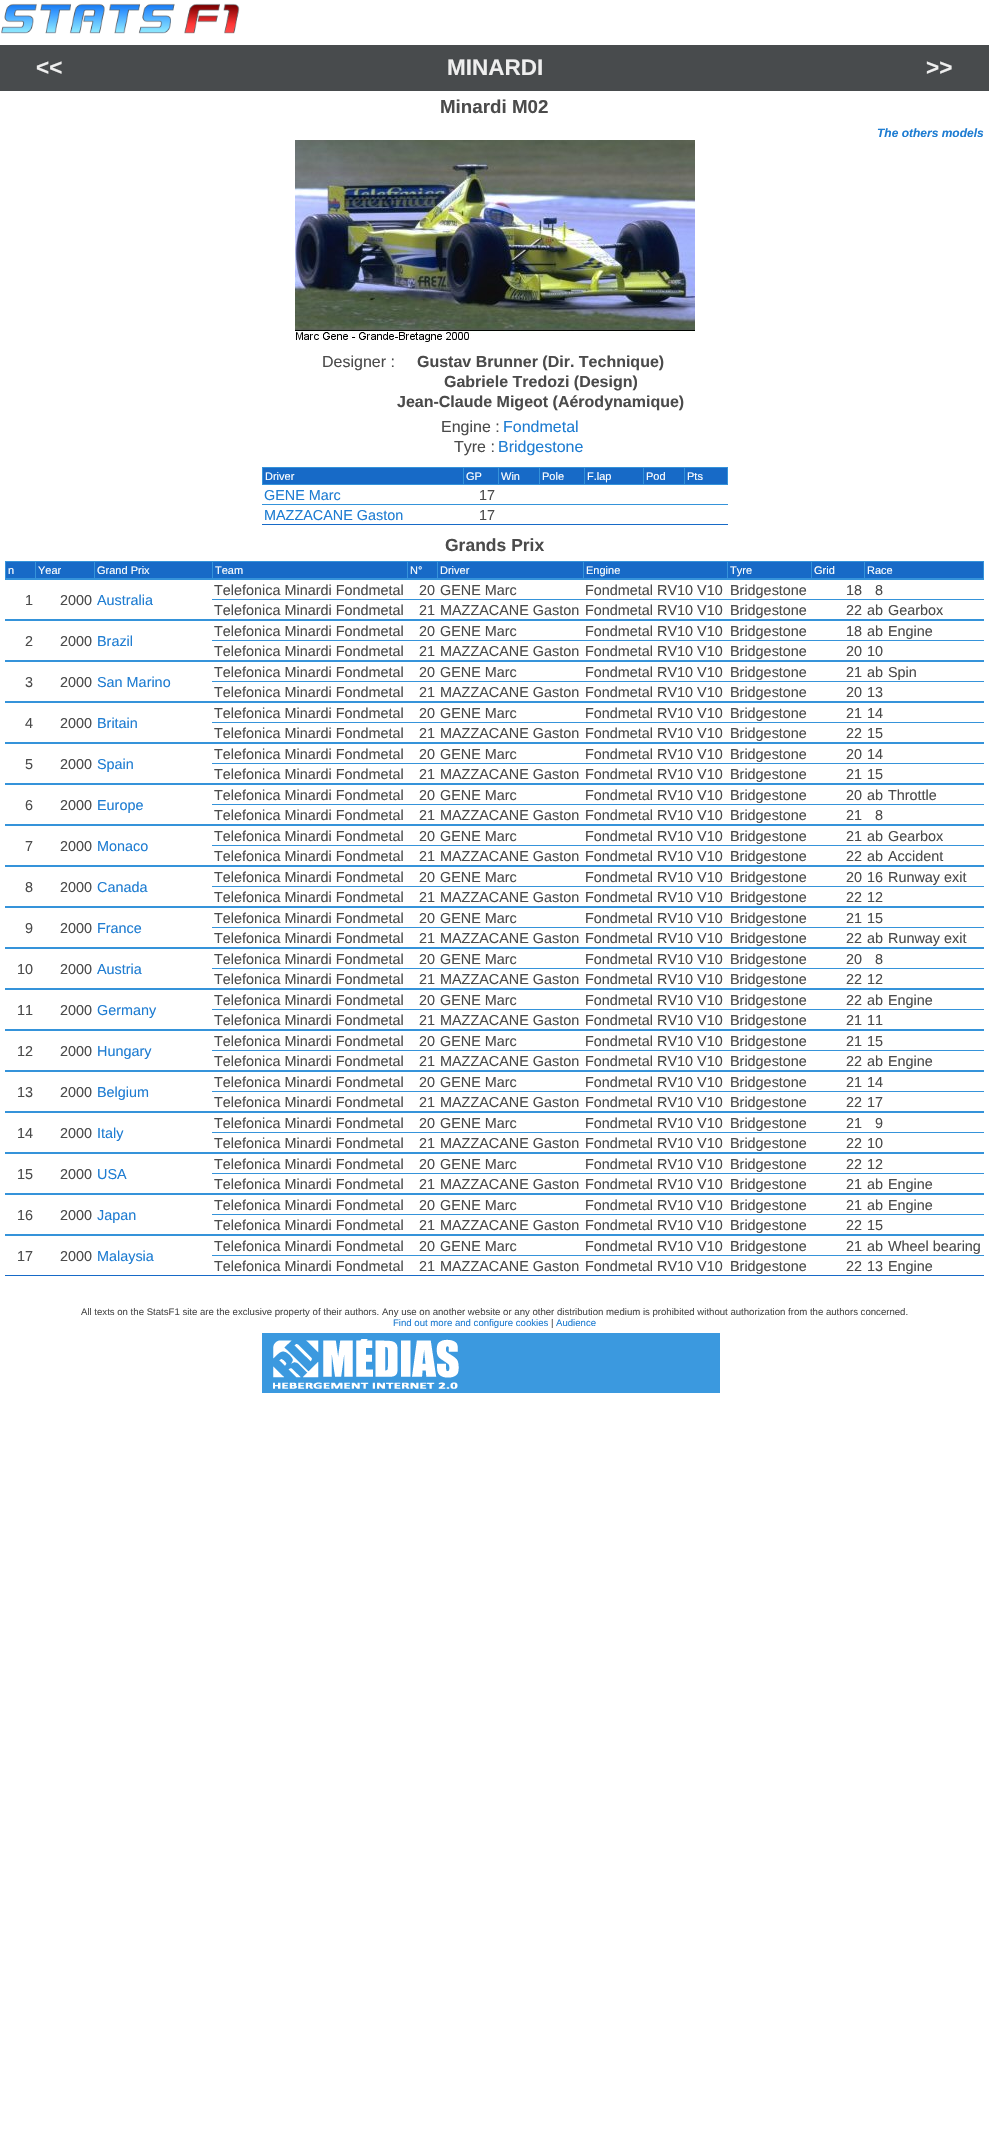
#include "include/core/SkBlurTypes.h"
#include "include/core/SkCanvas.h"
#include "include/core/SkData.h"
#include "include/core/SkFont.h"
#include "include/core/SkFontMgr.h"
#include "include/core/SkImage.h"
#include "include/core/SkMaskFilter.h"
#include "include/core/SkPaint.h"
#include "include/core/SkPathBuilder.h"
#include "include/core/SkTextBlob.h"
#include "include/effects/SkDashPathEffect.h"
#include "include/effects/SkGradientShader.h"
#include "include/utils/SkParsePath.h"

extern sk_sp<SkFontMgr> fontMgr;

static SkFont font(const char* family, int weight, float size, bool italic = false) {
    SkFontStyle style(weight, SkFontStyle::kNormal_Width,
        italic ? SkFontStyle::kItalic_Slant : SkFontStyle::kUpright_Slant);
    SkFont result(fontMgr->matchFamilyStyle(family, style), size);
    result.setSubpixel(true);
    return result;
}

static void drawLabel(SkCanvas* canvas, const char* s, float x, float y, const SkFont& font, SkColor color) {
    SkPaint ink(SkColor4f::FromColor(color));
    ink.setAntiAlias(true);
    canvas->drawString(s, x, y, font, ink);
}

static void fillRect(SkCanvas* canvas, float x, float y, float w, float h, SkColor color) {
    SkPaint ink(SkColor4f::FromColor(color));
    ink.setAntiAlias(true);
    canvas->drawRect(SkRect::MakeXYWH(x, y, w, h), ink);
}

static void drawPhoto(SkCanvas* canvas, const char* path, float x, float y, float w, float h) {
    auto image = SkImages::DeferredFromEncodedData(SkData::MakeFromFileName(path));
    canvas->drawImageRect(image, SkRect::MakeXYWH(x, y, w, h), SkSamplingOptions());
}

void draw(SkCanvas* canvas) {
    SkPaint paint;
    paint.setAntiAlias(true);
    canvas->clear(0xFFFFFFFF);
    drawPhoto(canvas, "assets/img1.png", 1, 3, 239, 31);
    fillRect(canvas, 0, 45, 989, 46, 0xFF484B4D);
    SkFont font1 = font("Liberation Sans", 700, 22.5f);
    drawLabel(canvas, "<<", 36, 75, font1, 0xFFEEEEEE);
    drawLabel(canvas, "MINARDI", 447, 75, font1, 0xFFEEEEEE);
    drawLabel(canvas, ">>", 926, 75, font1, 0xFFEEEEEE);
    SkFont font2 = font("Liberation Sans", 700, 18.75f);
    drawLabel(canvas, "Minardi M02", 440, 113, font2, 0xFF4B4B4B);
    SkFont font3 = font("Liberation Sans", 700, 12, true);
    drawLabel(canvas, "The others models", 877, 137, font3, 0xFF1F7DD2);
    drawPhoto(canvas, "assets/img2.png", 295, 140, 400, 203);
    SkFont font4 = font("Liberation Sans", 400, 16);
    drawLabel(canvas, "Designer :", 322, 367, font4, 0xFF4B4B4B);
    SkFont font5 = font("Liberation Sans", 700, 16);
    drawLabel(canvas, "Gustav Brunner (Dir. Technique)", 417, 367, font5, 0xFF4B4B4B);
    drawLabel(canvas, "Gabriele Tredozi (Design)", 444, 387, font5, 0xFF4B4B4B);
    drawLabel(canvas, "Jean-Claude Migeot (Aérodynamique)", 397, 407, font5, 0xFF4B4B4B);
    drawLabel(canvas, "Engine :", 441, 432, font4, 0xFF4B4B4B);
    drawLabel(canvas, "Fondmetal", 503, 432, font4, 0xFF1F7DD2);
    drawLabel(canvas, "Tyre :", 454, 452, font4, 0xFF4B4B4B);
    drawLabel(canvas, "Bridgestone", 498, 452, font4, 0xFF1F7DD2);
    fillRect(canvas, 263, 468, 200, 16, 0xFF176AC7);
    fillRect(canvas, 684, 467, 44, 1, 0xFF3593DA);
    fillRect(canvas, 262, 484, 466, 1, 0xFF3593DA);
    fillRect(canvas, 684, 467, 1, 18, 0xFF3593DA);
    fillRect(canvas, 643, 467, 42, 1, 0xFF3593DA);
    fillRect(canvas, 643, 467, 1, 18, 0xFF3593DA);
    fillRect(canvas, 584, 467, 60, 1, 0xFF3593DA);
    fillRect(canvas, 584, 467, 1, 18, 0xFF3593DA);
    fillRect(canvas, 539, 467, 46, 1, 0xFF3593DA);
    fillRect(canvas, 539, 467, 1, 18, 0xFF3593DA);
    fillRect(canvas, 498, 467, 42, 1, 0xFF3593DA);
    fillRect(canvas, 498, 467, 1, 18, 0xFF3593DA);
    fillRect(canvas, 463, 467, 36, 1, 0xFF3593DA);
    fillRect(canvas, 463, 467, 1, 18, 0xFF3593DA);
    fillRect(canvas, 262, 467, 202, 1, 0xFF3593DA);
    fillRect(canvas, 262, 467, 1, 18, 0xFF3593DA);
    SkFont font6 = font("Liberation Sans", 400, 11);
    drawLabel(canvas, "Driver", 265, 480, font6, 0xFFFFFFFF);
    fillRect(canvas, 464, 468, 34, 16, 0xFF176AC7);
    drawLabel(canvas, "GP", 466, 480, font6, 0xFFFFFFFF);
    fillRect(canvas, 499, 468, 40, 16, 0xFF176AC7);
    drawLabel(canvas, "Win", 501, 480, font6, 0xFFFFFFFF);
    fillRect(canvas, 540, 468, 44, 16, 0xFF176AC7);
    drawLabel(canvas, "Pole", 542, 480, font6, 0xFFFFFFFF);
    fillRect(canvas, 585, 468, 58, 16, 0xFF176AC7);
    drawLabel(canvas, "F.lap", 587, 480, font6, 0xFFFFFFFF);
    fillRect(canvas, 644, 468, 40, 16, 0xFF176AC7);
    drawLabel(canvas, "Pod", 646, 480, font6, 0xFFFFFFFF);
    fillRect(canvas, 685, 468, 42, 16, 0xFF176AC7);
    fillRect(canvas, 727, 467, 1, 18, 0xFF3593DA);
    drawLabel(canvas, "Pts", 687, 480, font6, 0xFFFFFFFF);
    SkFont font7 = font("Liberation Sans", 400, 14.4f);
    drawLabel(canvas, "GENE Marc", 264, 500, font7, 0xFF1F7DD2);
    drawLabel(canvas, "17", 479, 500, font7, 0xFF4B4B4B);
    fillRect(canvas, 262, 504, 466, 1, 0xFF3593DA);
    drawLabel(canvas, "MAZZACANE Gaston", 264, 520, font7, 0xFF1F7DD2);
    drawLabel(canvas, "17", 479, 520, font7, 0xFF4B4B4B);
    fillRect(canvas, 262, 524, 466, 1, 0xFF176AC7);
    SkFont font8 = font("Liberation Sans", 700, 17.5f);
    drawLabel(canvas, "Grands Prix", 445, 551, font8, 0xFF4B4B4B);
    fillRect(canvas, 6, 562, 29, 16, 0xFF176AC7);
    fillRect(canvas, 864, 561, 120, 1, 0xFF3593DA);
    fillRect(canvas, 864, 561, 1, 19, 0xFF3593DA);
    fillRect(canvas, 811, 561, 54, 1, 0xFF3593DA);
    fillRect(canvas, 811, 561, 1, 19, 0xFF3593DA);
    fillRect(canvas, 727, 561, 85, 1, 0xFF3593DA);
    fillRect(canvas, 727, 561, 1, 19, 0xFF3593DA);
    fillRect(canvas, 583, 561, 145, 1, 0xFF3593DA);
    fillRect(canvas, 583, 561, 1, 19, 0xFF3593DA);
    fillRect(canvas, 437, 561, 147, 1, 0xFF3593DA);
    fillRect(canvas, 437, 561, 1, 19, 0xFF3593DA);
    fillRect(canvas, 407, 561, 31, 1, 0xFF3593DA);
    fillRect(canvas, 407, 561, 1, 19, 0xFF3593DA);
    fillRect(canvas, 212, 561, 196, 1, 0xFF3593DA);
    fillRect(canvas, 212, 561, 1, 19, 0xFF3593DA);
    fillRect(canvas, 94, 561, 119, 1, 0xFF3593DA);
    fillRect(canvas, 94, 561, 1, 19, 0xFF3593DA);
    fillRect(canvas, 35, 561, 60, 1, 0xFF3593DA);
    fillRect(canvas, 35, 561, 1, 19, 0xFF3593DA);
    fillRect(canvas, 5, 561, 31, 1, 0xFF3593DA);
    fillRect(canvas, 5, 561, 1, 19, 0xFF3593DA);
    drawLabel(canvas, "n", 8, 574, font6, 0xFFFFFFFF);
    fillRect(canvas, 36, 562, 58, 16, 0xFF176AC7);
    drawLabel(canvas, "Year", 38, 574, font6, 0xFFFFFFFF);
    fillRect(canvas, 95, 562, 117, 16, 0xFF176AC7);
    drawLabel(canvas, "Grand Prix", 97, 574, font6, 0xFFFFFFFF);
    fillRect(canvas, 213, 562, 194, 16, 0xFF176AC7);
    drawLabel(canvas, "Team", 215, 574, font6, 0xFFFFFFFF);
    fillRect(canvas, 408, 562, 29, 16, 0xFF176AC7);
    drawLabel(canvas, "N°", 410, 574, font6, 0xFFFFFFFF);
    fillRect(canvas, 438, 562, 145, 16, 0xFF176AC7);
    drawLabel(canvas, "Driver", 440, 574, font6, 0xFFFFFFFF);
    fillRect(canvas, 584, 562, 143, 16, 0xFF176AC7);
    drawLabel(canvas, "Engine", 586, 574, font6, 0xFFFFFFFF);
    fillRect(canvas, 728, 562, 83, 16, 0xFF176AC7);
    drawLabel(canvas, "Tyre", 730, 574, font6, 0xFFFFFFFF);
    fillRect(canvas, 812, 562, 52, 16, 0xFF176AC7);
    drawLabel(canvas, "Grid", 814, 574, font6, 0xFFFFFFFF);
    fillRect(canvas, 865, 562, 118, 16, 0xFF176AC7);
    fillRect(canvas, 983, 561, 1, 19, 0xFF3593DA);
    drawLabel(canvas, "Race", 867, 574, font6, 0xFFFFFFFF);
    fillRect(canvas, 5, 578, 979, 2, 0xFF3593DA);
    drawLabel(canvas, "Telefonica Minardi Fondmetal", 214, 595, font7, 0xFF4B4B4B);
    drawLabel(canvas, "20", 419, 595, font7, 0xFF4B4B4B);
    drawLabel(canvas, "GENE Marc", 440, 595, font7, 0xFF4B4B4B);
    drawLabel(canvas, "Fondmetal RV10 V10", 585, 595, font7, 0xFF4B4B4B);
    drawLabel(canvas, "Bridgestone", 730, 595, font7, 0xFF4B4B4B);
    drawLabel(canvas, "18", 846, 595, font7, 0xFF4B4B4B);
    drawLabel(canvas, "8", 875, 595, font7, 0xFF4B4B4B);
    drawLabel(canvas, "1", 25, 605, font7, 0xFF4B4B4B);
    drawLabel(canvas, "2000", 60, 605, font7, 0xFF4B4B4B);
    drawLabel(canvas, "Australia", 97, 605, font7, 0xFF1F7DD2);
    drawLabel(canvas, "Telefonica Minardi Fondmetal", 214, 615, font7, 0xFF4B4B4B);
    drawLabel(canvas, "21", 419, 615, font7, 0xFF4B4B4B);
    drawLabel(canvas, "MAZZACANE Gaston", 440, 615, font7, 0xFF4B4B4B);
    drawLabel(canvas, "Fondmetal RV10 V10", 585, 615, font7, 0xFF4B4B4B);
    drawLabel(canvas, "Bridgestone", 730, 615, font7, 0xFF4B4B4B);
    drawLabel(canvas, "22", 846, 615, font7, 0xFF4B4B4B);
    drawLabel(canvas, "ab", 867, 615, font7, 0xFF4B4B4B);
    fillRect(canvas, 212, 599, 772, 1, 0xFF3593DA);
    drawLabel(canvas, "Gearbox", 888, 615, font7, 0xFF4B4B4B);
    drawLabel(canvas, "Telefonica Minardi Fondmetal", 214, 636, font7, 0xFF4B4B4B);
    drawLabel(canvas, "20", 419, 636, font7, 0xFF4B4B4B);
    drawLabel(canvas, "GENE Marc", 440, 636, font7, 0xFF4B4B4B);
    drawLabel(canvas, "Fondmetal RV10 V10", 585, 636, font7, 0xFF4B4B4B);
    drawLabel(canvas, "Bridgestone", 730, 636, font7, 0xFF4B4B4B);
    drawLabel(canvas, "18", 846, 636, font7, 0xFF4B4B4B);
    drawLabel(canvas, "ab", 867, 636, font7, 0xFF4B4B4B);
    fillRect(canvas, 5, 619, 979, 2, 0xFF3593DA);
    drawLabel(canvas, "Engine", 888, 636, font7, 0xFF4B4B4B);
    drawLabel(canvas, "2", 25, 646, font7, 0xFF4B4B4B);
    drawLabel(canvas, "2000", 60, 646, font7, 0xFF4B4B4B);
    drawLabel(canvas, "Brazil", 97, 646, font7, 0xFF1F7DD2);
    fillRect(canvas, 212, 640, 772, 1, 0xFF3593DA);
    drawLabel(canvas, "Telefonica Minardi Fondmetal", 214, 656, font7, 0xFF4B4B4B);
    drawLabel(canvas, "21", 419, 656, font7, 0xFF4B4B4B);
    drawLabel(canvas, "MAZZACANE Gaston", 440, 656, font7, 0xFF4B4B4B);
    drawLabel(canvas, "Fondmetal RV10 V10", 585, 656, font7, 0xFF4B4B4B);
    drawLabel(canvas, "Bridgestone", 730, 656, font7, 0xFF4B4B4B);
    drawLabel(canvas, "20", 846, 656, font7, 0xFF4B4B4B);
    drawLabel(canvas, "10", 867, 656, font7, 0xFF4B4B4B);
    drawLabel(canvas, "Telefonica Minardi Fondmetal", 214, 677, font7, 0xFF4B4B4B);
    drawLabel(canvas, "20", 419, 677, font7, 0xFF4B4B4B);
    drawLabel(canvas, "GENE Marc", 440, 677, font7, 0xFF4B4B4B);
    drawLabel(canvas, "Fondmetal RV10 V10", 585, 677, font7, 0xFF4B4B4B);
    drawLabel(canvas, "Bridgestone", 730, 677, font7, 0xFF4B4B4B);
    drawLabel(canvas, "21", 846, 677, font7, 0xFF4B4B4B);
    drawLabel(canvas, "ab", 867, 677, font7, 0xFF4B4B4B);
    fillRect(canvas, 5, 660, 979, 2, 0xFF3593DA);
    drawLabel(canvas, "Spin", 888, 677, font7, 0xFF4B4B4B);
    drawLabel(canvas, "3", 25, 687, font7, 0xFF4B4B4B);
    drawLabel(canvas, "2000", 60, 687, font7, 0xFF4B4B4B);
    drawLabel(canvas, "San Marino", 97, 687, font7, 0xFF1F7DD2);
    fillRect(canvas, 212, 681, 772, 1, 0xFF3593DA);
    drawLabel(canvas, "Telefonica Minardi Fondmetal", 214, 697, font7, 0xFF4B4B4B);
    drawLabel(canvas, "21", 419, 697, font7, 0xFF4B4B4B);
    drawLabel(canvas, "MAZZACANE Gaston", 440, 697, font7, 0xFF4B4B4B);
    drawLabel(canvas, "Fondmetal RV10 V10", 585, 697, font7, 0xFF4B4B4B);
    drawLabel(canvas, "Bridgestone", 730, 697, font7, 0xFF4B4B4B);
    drawLabel(canvas, "20", 846, 697, font7, 0xFF4B4B4B);
    drawLabel(canvas, "13", 867, 697, font7, 0xFF4B4B4B);
    fillRect(canvas, 5, 701, 979, 2, 0xFF3593DA);
    drawLabel(canvas, "Telefonica Minardi Fondmetal", 214, 718, font7, 0xFF4B4B4B);
    drawLabel(canvas, "20", 419, 718, font7, 0xFF4B4B4B);
    drawLabel(canvas, "GENE Marc", 440, 718, font7, 0xFF4B4B4B);
    drawLabel(canvas, "Fondmetal RV10 V10", 585, 718, font7, 0xFF4B4B4B);
    drawLabel(canvas, "Bridgestone", 730, 718, font7, 0xFF4B4B4B);
    drawLabel(canvas, "21", 846, 718, font7, 0xFF4B4B4B);
    drawLabel(canvas, "14", 867, 718, font7, 0xFF4B4B4B);
    drawLabel(canvas, "4", 25, 728, font7, 0xFF4B4B4B);
    drawLabel(canvas, "2000", 60, 728, font7, 0xFF4B4B4B);
    drawLabel(canvas, "Britain", 97, 728, font7, 0xFF1F7DD2);
    fillRect(canvas, 212, 722, 772, 1, 0xFF3593DA);
    drawLabel(canvas, "Telefonica Minardi Fondmetal", 214, 738, font7, 0xFF4B4B4B);
    drawLabel(canvas, "21", 419, 738, font7, 0xFF4B4B4B);
    drawLabel(canvas, "MAZZACANE Gaston", 440, 738, font7, 0xFF4B4B4B);
    drawLabel(canvas, "Fondmetal RV10 V10", 585, 738, font7, 0xFF4B4B4B);
    drawLabel(canvas, "Bridgestone", 730, 738, font7, 0xFF4B4B4B);
    drawLabel(canvas, "22", 846, 738, font7, 0xFF4B4B4B);
    drawLabel(canvas, "15", 867, 738, font7, 0xFF4B4B4B);
    fillRect(canvas, 5, 742, 979, 2, 0xFF3593DA);
    drawLabel(canvas, "Telefonica Minardi Fondmetal", 214, 759, font7, 0xFF4B4B4B);
    drawLabel(canvas, "20", 419, 759, font7, 0xFF4B4B4B);
    drawLabel(canvas, "GENE Marc", 440, 759, font7, 0xFF4B4B4B);
    drawLabel(canvas, "Fondmetal RV10 V10", 585, 759, font7, 0xFF4B4B4B);
    drawLabel(canvas, "Bridgestone", 730, 759, font7, 0xFF4B4B4B);
    drawLabel(canvas, "20", 846, 759, font7, 0xFF4B4B4B);
    drawLabel(canvas, "14", 867, 759, font7, 0xFF4B4B4B);
    drawLabel(canvas, "5", 25, 769, font7, 0xFF4B4B4B);
    drawLabel(canvas, "2000", 60, 769, font7, 0xFF4B4B4B);
    drawLabel(canvas, "Spain", 97, 769, font7, 0xFF1F7DD2);
    fillRect(canvas, 212, 763, 772, 1, 0xFF3593DA);
    drawLabel(canvas, "Telefonica Minardi Fondmetal", 214, 779, font7, 0xFF4B4B4B);
    drawLabel(canvas, "21", 419, 779, font7, 0xFF4B4B4B);
    drawLabel(canvas, "MAZZACANE Gaston", 440, 779, font7, 0xFF4B4B4B);
    drawLabel(canvas, "Fondmetal RV10 V10", 585, 779, font7, 0xFF4B4B4B);
    drawLabel(canvas, "Bridgestone", 730, 779, font7, 0xFF4B4B4B);
    drawLabel(canvas, "21", 846, 779, font7, 0xFF4B4B4B);
    drawLabel(canvas, "15", 867, 779, font7, 0xFF4B4B4B);
    drawLabel(canvas, "Telefonica Minardi Fondmetal", 214, 800, font7, 0xFF4B4B4B);
    drawLabel(canvas, "20", 419, 800, font7, 0xFF4B4B4B);
    drawLabel(canvas, "GENE Marc", 440, 800, font7, 0xFF4B4B4B);
    drawLabel(canvas, "Fondmetal RV10 V10", 585, 800, font7, 0xFF4B4B4B);
    drawLabel(canvas, "Bridgestone", 730, 800, font7, 0xFF4B4B4B);
    drawLabel(canvas, "20", 846, 800, font7, 0xFF4B4B4B);
    drawLabel(canvas, "ab", 867, 800, font7, 0xFF4B4B4B);
    fillRect(canvas, 5, 783, 979, 2, 0xFF3593DA);
    drawLabel(canvas, "Throttle", 888, 800, font7, 0xFF4B4B4B);
    drawLabel(canvas, "6", 25, 810, font7, 0xFF4B4B4B);
    drawLabel(canvas, "2000", 60, 810, font7, 0xFF4B4B4B);
    drawLabel(canvas, "Europe", 97, 810, font7, 0xFF1F7DD2);
    fillRect(canvas, 212, 804, 772, 1, 0xFF3593DA);
    drawLabel(canvas, "Telefonica Minardi Fondmetal", 214, 820, font7, 0xFF4B4B4B);
    drawLabel(canvas, "21", 419, 820, font7, 0xFF4B4B4B);
    drawLabel(canvas, "MAZZACANE Gaston", 440, 820, font7, 0xFF4B4B4B);
    drawLabel(canvas, "Fondmetal RV10 V10", 585, 820, font7, 0xFF4B4B4B);
    drawLabel(canvas, "Bridgestone", 730, 820, font7, 0xFF4B4B4B);
    drawLabel(canvas, "21", 846, 820, font7, 0xFF4B4B4B);
    drawLabel(canvas, "8", 875, 820, font7, 0xFF4B4B4B);
    drawLabel(canvas, "Telefonica Minardi Fondmetal", 214, 841, font7, 0xFF4B4B4B);
    drawLabel(canvas, "20", 419, 841, font7, 0xFF4B4B4B);
    drawLabel(canvas, "GENE Marc", 440, 841, font7, 0xFF4B4B4B);
    drawLabel(canvas, "Fondmetal RV10 V10", 585, 841, font7, 0xFF4B4B4B);
    drawLabel(canvas, "Bridgestone", 730, 841, font7, 0xFF4B4B4B);
    drawLabel(canvas, "21", 846, 841, font7, 0xFF4B4B4B);
    drawLabel(canvas, "ab", 867, 841, font7, 0xFF4B4B4B);
    fillRect(canvas, 5, 824, 979, 2, 0xFF3593DA);
    drawLabel(canvas, "Gearbox", 888, 841, font7, 0xFF4B4B4B);
    drawLabel(canvas, "7", 25, 851, font7, 0xFF4B4B4B);
    drawLabel(canvas, "2000", 60, 851, font7, 0xFF4B4B4B);
    drawLabel(canvas, "Monaco", 97, 851, font7, 0xFF1F7DD2);
    drawLabel(canvas, "Telefonica Minardi Fondmetal", 214, 861, font7, 0xFF4B4B4B);
    drawLabel(canvas, "21", 419, 861, font7, 0xFF4B4B4B);
    drawLabel(canvas, "MAZZACANE Gaston", 440, 861, font7, 0xFF4B4B4B);
    drawLabel(canvas, "Fondmetal RV10 V10", 585, 861, font7, 0xFF4B4B4B);
    drawLabel(canvas, "Bridgestone", 730, 861, font7, 0xFF4B4B4B);
    drawLabel(canvas, "22", 846, 861, font7, 0xFF4B4B4B);
    drawLabel(canvas, "ab", 867, 861, font7, 0xFF4B4B4B);
    fillRect(canvas, 212, 845, 772, 1, 0xFF3593DA);
    drawLabel(canvas, "Accident", 888, 861, font7, 0xFF4B4B4B);
    drawLabel(canvas, "Telefonica Minardi Fondmetal", 214, 882, font7, 0xFF4B4B4B);
    drawLabel(canvas, "20", 419, 882, font7, 0xFF4B4B4B);
    drawLabel(canvas, "GENE Marc", 440, 882, font7, 0xFF4B4B4B);
    drawLabel(canvas, "Fondmetal RV10 V10", 585, 882, font7, 0xFF4B4B4B);
    drawLabel(canvas, "Bridgestone", 730, 882, font7, 0xFF4B4B4B);
    drawLabel(canvas, "20", 846, 882, font7, 0xFF4B4B4B);
    drawLabel(canvas, "16", 867, 882, font7, 0xFF4B4B4B);
    fillRect(canvas, 5, 865, 979, 2, 0xFF3593DA);
    drawLabel(canvas, "Runway exit", 888, 882, font7, 0xFF4B4B4B);
    drawLabel(canvas, "8", 25, 892, font7, 0xFF4B4B4B);
    drawLabel(canvas, "2000", 60, 892, font7, 0xFF4B4B4B);
    drawLabel(canvas, "Canada", 97, 892, font7, 0xFF1F7DD2);
    fillRect(canvas, 212, 886, 772, 1, 0xFF3593DA);
    drawLabel(canvas, "Telefonica Minardi Fondmetal", 214, 902, font7, 0xFF4B4B4B);
    drawLabel(canvas, "21", 419, 902, font7, 0xFF4B4B4B);
    drawLabel(canvas, "MAZZACANE Gaston", 440, 902, font7, 0xFF4B4B4B);
    drawLabel(canvas, "Fondmetal RV10 V10", 585, 902, font7, 0xFF4B4B4B);
    drawLabel(canvas, "Bridgestone", 730, 902, font7, 0xFF4B4B4B);
    drawLabel(canvas, "22", 846, 902, font7, 0xFF4B4B4B);
    drawLabel(canvas, "12", 867, 902, font7, 0xFF4B4B4B);
    fillRect(canvas, 5, 906, 979, 2, 0xFF3593DA);
    drawLabel(canvas, "Telefonica Minardi Fondmetal", 214, 923, font7, 0xFF4B4B4B);
    drawLabel(canvas, "20", 419, 923, font7, 0xFF4B4B4B);
    drawLabel(canvas, "GENE Marc", 440, 923, font7, 0xFF4B4B4B);
    drawLabel(canvas, "Fondmetal RV10 V10", 585, 923, font7, 0xFF4B4B4B);
    drawLabel(canvas, "Bridgestone", 730, 923, font7, 0xFF4B4B4B);
    drawLabel(canvas, "21", 846, 923, font7, 0xFF4B4B4B);
    drawLabel(canvas, "15", 867, 923, font7, 0xFF4B4B4B);
    drawLabel(canvas, "9", 25, 933, font7, 0xFF4B4B4B);
    drawLabel(canvas, "2000", 60, 933, font7, 0xFF4B4B4B);
    drawLabel(canvas, "France", 97, 933, font7, 0xFF1F7DD2);
    drawLabel(canvas, "Telefonica Minardi Fondmetal", 214, 943, font7, 0xFF4B4B4B);
    drawLabel(canvas, "21", 419, 943, font7, 0xFF4B4B4B);
    drawLabel(canvas, "MAZZACANE Gaston", 440, 943, font7, 0xFF4B4B4B);
    drawLabel(canvas, "Fondmetal RV10 V10", 585, 943, font7, 0xFF4B4B4B);
    drawLabel(canvas, "Bridgestone", 730, 943, font7, 0xFF4B4B4B);
    drawLabel(canvas, "22", 846, 943, font7, 0xFF4B4B4B);
    drawLabel(canvas, "ab", 867, 943, font7, 0xFF4B4B4B);
    fillRect(canvas, 212, 927, 772, 1, 0xFF3593DA);
    drawLabel(canvas, "Runway exit", 888, 943, font7, 0xFF4B4B4B);
    fillRect(canvas, 5, 947, 979, 2, 0xFF3593DA);
    drawLabel(canvas, "Telefonica Minardi Fondmetal", 214, 964, font7, 0xFF4B4B4B);
    drawLabel(canvas, "20", 419, 964, font7, 0xFF4B4B4B);
    drawLabel(canvas, "GENE Marc", 440, 964, font7, 0xFF4B4B4B);
    drawLabel(canvas, "Fondmetal RV10 V10", 585, 964, font7, 0xFF4B4B4B);
    drawLabel(canvas, "Bridgestone", 730, 964, font7, 0xFF4B4B4B);
    drawLabel(canvas, "20", 846, 964, font7, 0xFF4B4B4B);
    drawLabel(canvas, "8", 875, 964, font7, 0xFF4B4B4B);
    drawLabel(canvas, "10", 17, 974, font7, 0xFF4B4B4B);
    drawLabel(canvas, "2000", 60, 974, font7, 0xFF4B4B4B);
    drawLabel(canvas, "Austria", 97, 974, font7, 0xFF1F7DD2);
    fillRect(canvas, 212, 968, 772, 1, 0xFF3593DA);
    drawLabel(canvas, "Telefonica Minardi Fondmetal", 214, 984, font7, 0xFF4B4B4B);
    drawLabel(canvas, "21", 419, 984, font7, 0xFF4B4B4B);
    drawLabel(canvas, "MAZZACANE Gaston", 440, 984, font7, 0xFF4B4B4B);
    drawLabel(canvas, "Fondmetal RV10 V10", 585, 984, font7, 0xFF4B4B4B);
    drawLabel(canvas, "Bridgestone", 730, 984, font7, 0xFF4B4B4B);
    drawLabel(canvas, "22", 846, 984, font7, 0xFF4B4B4B);
    drawLabel(canvas, "12", 867, 984, font7, 0xFF4B4B4B);
    drawLabel(canvas, "Telefonica Minardi Fondmetal", 214, 1005, font7, 0xFF4B4B4B);
    drawLabel(canvas, "20", 419, 1005, font7, 0xFF4B4B4B);
    drawLabel(canvas, "GENE Marc", 440, 1005, font7, 0xFF4B4B4B);
    drawLabel(canvas, "Fondmetal RV10 V10", 585, 1005, font7, 0xFF4B4B4B);
    drawLabel(canvas, "Bridgestone", 730, 1005, font7, 0xFF4B4B4B);
    drawLabel(canvas, "22", 846, 1005, font7, 0xFF4B4B4B);
    drawLabel(canvas, "ab", 867, 1005, font7, 0xFF4B4B4B);
    fillRect(canvas, 5, 988, 979, 2, 0xFF3593DA);
    drawLabel(canvas, "Engine", 888, 1005, font7, 0xFF4B4B4B);
    drawLabel(canvas, "11", 17, 1015, font7, 0xFF4B4B4B);
    drawLabel(canvas, "2000", 60, 1015, font7, 0xFF4B4B4B);
    drawLabel(canvas, "Germany", 97, 1015, font7, 0xFF1F7DD2);
    fillRect(canvas, 212, 1009, 772, 1, 0xFF3593DA);
    drawLabel(canvas, "Telefonica Minardi Fondmetal", 214, 1025, font7, 0xFF4B4B4B);
    drawLabel(canvas, "21", 419, 1025, font7, 0xFF4B4B4B);
    drawLabel(canvas, "MAZZACANE Gaston", 440, 1025, font7, 0xFF4B4B4B);
    drawLabel(canvas, "Fondmetal RV10 V10", 585, 1025, font7, 0xFF4B4B4B);
    drawLabel(canvas, "Bridgestone", 730, 1025, font7, 0xFF4B4B4B);
    drawLabel(canvas, "21", 846, 1025, font7, 0xFF4B4B4B);
    drawLabel(canvas, "11", 867, 1025, font7, 0xFF4B4B4B);
    fillRect(canvas, 5, 1029, 979, 2, 0xFF3593DA);
    drawLabel(canvas, "Telefonica Minardi Fondmetal", 214, 1046, font7, 0xFF4B4B4B);
    drawLabel(canvas, "20", 419, 1046, font7, 0xFF4B4B4B);
    drawLabel(canvas, "GENE Marc", 440, 1046, font7, 0xFF4B4B4B);
    drawLabel(canvas, "Fondmetal RV10 V10", 585, 1046, font7, 0xFF4B4B4B);
    drawLabel(canvas, "Bridgestone", 730, 1046, font7, 0xFF4B4B4B);
    drawLabel(canvas, "21", 846, 1046, font7, 0xFF4B4B4B);
    drawLabel(canvas, "15", 867, 1046, font7, 0xFF4B4B4B);
    drawLabel(canvas, "12", 17, 1056, font7, 0xFF4B4B4B);
    drawLabel(canvas, "2000", 60, 1056, font7, 0xFF4B4B4B);
    drawLabel(canvas, "Hungary", 97, 1056, font7, 0xFF1F7DD2);
    drawLabel(canvas, "Telefonica Minardi Fondmetal", 214, 1066, font7, 0xFF4B4B4B);
    drawLabel(canvas, "21", 419, 1066, font7, 0xFF4B4B4B);
    drawLabel(canvas, "MAZZACANE Gaston", 440, 1066, font7, 0xFF4B4B4B);
    drawLabel(canvas, "Fondmetal RV10 V10", 585, 1066, font7, 0xFF4B4B4B);
    drawLabel(canvas, "Bridgestone", 730, 1066, font7, 0xFF4B4B4B);
    drawLabel(canvas, "22", 846, 1066, font7, 0xFF4B4B4B);
    drawLabel(canvas, "ab", 867, 1066, font7, 0xFF4B4B4B);
    fillRect(canvas, 212, 1050, 772, 1, 0xFF3593DA);
    drawLabel(canvas, "Engine", 888, 1066, font7, 0xFF4B4B4B);
    fillRect(canvas, 5, 1070, 979, 2, 0xFF3593DA);
    drawLabel(canvas, "Telefonica Minardi Fondmetal", 214, 1087, font7, 0xFF4B4B4B);
    drawLabel(canvas, "20", 419, 1087, font7, 0xFF4B4B4B);
    drawLabel(canvas, "GENE Marc", 440, 1087, font7, 0xFF4B4B4B);
    drawLabel(canvas, "Fondmetal RV10 V10", 585, 1087, font7, 0xFF4B4B4B);
    drawLabel(canvas, "Bridgestone", 730, 1087, font7, 0xFF4B4B4B);
    drawLabel(canvas, "21", 846, 1087, font7, 0xFF4B4B4B);
    drawLabel(canvas, "14", 867, 1087, font7, 0xFF4B4B4B);
    drawLabel(canvas, "13", 17, 1097, font7, 0xFF4B4B4B);
    drawLabel(canvas, "2000", 60, 1097, font7, 0xFF4B4B4B);
    drawLabel(canvas, "Belgium", 97, 1097, font7, 0xFF1F7DD2);
    fillRect(canvas, 212, 1091, 772, 1, 0xFF3593DA);
    drawLabel(canvas, "Telefonica Minardi Fondmetal", 214, 1107, font7, 0xFF4B4B4B);
    drawLabel(canvas, "21", 419, 1107, font7, 0xFF4B4B4B);
    drawLabel(canvas, "MAZZACANE Gaston", 440, 1107, font7, 0xFF4B4B4B);
    drawLabel(canvas, "Fondmetal RV10 V10", 585, 1107, font7, 0xFF4B4B4B);
    drawLabel(canvas, "Bridgestone", 730, 1107, font7, 0xFF4B4B4B);
    drawLabel(canvas, "22", 846, 1107, font7, 0xFF4B4B4B);
    drawLabel(canvas, "17", 867, 1107, font7, 0xFF4B4B4B);
    fillRect(canvas, 5, 1111, 979, 2, 0xFF3593DA);
    drawLabel(canvas, "Telefonica Minardi Fondmetal", 214, 1128, font7, 0xFF4B4B4B);
    drawLabel(canvas, "20", 419, 1128, font7, 0xFF4B4B4B);
    drawLabel(canvas, "GENE Marc", 440, 1128, font7, 0xFF4B4B4B);
    drawLabel(canvas, "Fondmetal RV10 V10", 585, 1128, font7, 0xFF4B4B4B);
    drawLabel(canvas, "Bridgestone", 730, 1128, font7, 0xFF4B4B4B);
    drawLabel(canvas, "21", 846, 1128, font7, 0xFF4B4B4B);
    drawLabel(canvas, "9", 875, 1128, font7, 0xFF4B4B4B);
    drawLabel(canvas, "14", 17, 1138, font7, 0xFF4B4B4B);
    drawLabel(canvas, "2000", 60, 1138, font7, 0xFF4B4B4B);
    drawLabel(canvas, "Italy", 97, 1138, font7, 0xFF1F7DD2);
    fillRect(canvas, 212, 1132, 772, 1, 0xFF3593DA);
    drawLabel(canvas, "Telefonica Minardi Fondmetal", 214, 1148, font7, 0xFF4B4B4B);
    drawLabel(canvas, "21", 419, 1148, font7, 0xFF4B4B4B);
    drawLabel(canvas, "MAZZACANE Gaston", 440, 1148, font7, 0xFF4B4B4B);
    drawLabel(canvas, "Fondmetal RV10 V10", 585, 1148, font7, 0xFF4B4B4B);
    drawLabel(canvas, "Bridgestone", 730, 1148, font7, 0xFF4B4B4B);
    drawLabel(canvas, "22", 846, 1148, font7, 0xFF4B4B4B);
    drawLabel(canvas, "10", 867, 1148, font7, 0xFF4B4B4B);
    fillRect(canvas, 5, 1152, 979, 2, 0xFF3593DA);
    drawLabel(canvas, "Telefonica Minardi Fondmetal", 214, 1169, font7, 0xFF4B4B4B);
    drawLabel(canvas, "20", 419, 1169, font7, 0xFF4B4B4B);
    drawLabel(canvas, "GENE Marc", 440, 1169, font7, 0xFF4B4B4B);
    drawLabel(canvas, "Fondmetal RV10 V10", 585, 1169, font7, 0xFF4B4B4B);
    drawLabel(canvas, "Bridgestone", 730, 1169, font7, 0xFF4B4B4B);
    drawLabel(canvas, "22", 846, 1169, font7, 0xFF4B4B4B);
    drawLabel(canvas, "12", 867, 1169, font7, 0xFF4B4B4B);
    drawLabel(canvas, "15", 17, 1179, font7, 0xFF4B4B4B);
    drawLabel(canvas, "2000", 60, 1179, font7, 0xFF4B4B4B);
    drawLabel(canvas, "USA", 97, 1179, font7, 0xFF1F7DD2);
    drawLabel(canvas, "Telefonica Minardi Fondmetal", 214, 1189, font7, 0xFF4B4B4B);
    drawLabel(canvas, "21", 419, 1189, font7, 0xFF4B4B4B);
    drawLabel(canvas, "MAZZACANE Gaston", 440, 1189, font7, 0xFF4B4B4B);
    drawLabel(canvas, "Fondmetal RV10 V10", 585, 1189, font7, 0xFF4B4B4B);
    drawLabel(canvas, "Bridgestone", 730, 1189, font7, 0xFF4B4B4B);
    drawLabel(canvas, "21", 846, 1189, font7, 0xFF4B4B4B);
    drawLabel(canvas, "ab", 867, 1189, font7, 0xFF4B4B4B);
    fillRect(canvas, 212, 1173, 772, 1, 0xFF3593DA);
    drawLabel(canvas, "Engine", 888, 1189, font7, 0xFF4B4B4B);
    drawLabel(canvas, "Telefonica Minardi Fondmetal", 214, 1210, font7, 0xFF4B4B4B);
    drawLabel(canvas, "20", 419, 1210, font7, 0xFF4B4B4B);
    drawLabel(canvas, "GENE Marc", 440, 1210, font7, 0xFF4B4B4B);
    drawLabel(canvas, "Fondmetal RV10 V10", 585, 1210, font7, 0xFF4B4B4B);
    drawLabel(canvas, "Bridgestone", 730, 1210, font7, 0xFF4B4B4B);
    drawLabel(canvas, "21", 846, 1210, font7, 0xFF4B4B4B);
    drawLabel(canvas, "ab", 867, 1210, font7, 0xFF4B4B4B);
    fillRect(canvas, 5, 1193, 979, 2, 0xFF3593DA);
    drawLabel(canvas, "Engine", 888, 1210, font7, 0xFF4B4B4B);
    drawLabel(canvas, "16", 17, 1220, font7, 0xFF4B4B4B);
    drawLabel(canvas, "2000", 60, 1220, font7, 0xFF4B4B4B);
    drawLabel(canvas, "Japan", 97, 1220, font7, 0xFF1F7DD2);
    fillRect(canvas, 212, 1214, 772, 1, 0xFF3593DA);
    drawLabel(canvas, "Telefonica Minardi Fondmetal", 214, 1230, font7, 0xFF4B4B4B);
    drawLabel(canvas, "21", 419, 1230, font7, 0xFF4B4B4B);
    drawLabel(canvas, "MAZZACANE Gaston", 440, 1230, font7, 0xFF4B4B4B);
    drawLabel(canvas, "Fondmetal RV10 V10", 585, 1230, font7, 0xFF4B4B4B);
    drawLabel(canvas, "Bridgestone", 730, 1230, font7, 0xFF4B4B4B);
    drawLabel(canvas, "22", 846, 1230, font7, 0xFF4B4B4B);
    drawLabel(canvas, "15", 867, 1230, font7, 0xFF4B4B4B);
    drawLabel(canvas, "Telefonica Minardi Fondmetal", 214, 1251, font7, 0xFF4B4B4B);
    drawLabel(canvas, "20", 419, 1251, font7, 0xFF4B4B4B);
    drawLabel(canvas, "GENE Marc", 440, 1251, font7, 0xFF4B4B4B);
    drawLabel(canvas, "Fondmetal RV10 V10", 585, 1251, font7, 0xFF4B4B4B);
    drawLabel(canvas, "Bridgestone", 730, 1251, font7, 0xFF4B4B4B);
    drawLabel(canvas, "21", 846, 1251, font7, 0xFF4B4B4B);
    drawLabel(canvas, "ab", 867, 1251, font7, 0xFF4B4B4B);
    fillRect(canvas, 5, 1234, 979, 2, 0xFF3593DA);
    drawLabel(canvas, "Wheel bearing", 888, 1251, font7, 0xFF4B4B4B);
    drawLabel(canvas, "17", 17, 1261, font7, 0xFF4B4B4B);
    drawLabel(canvas, "2000", 60, 1261, font7, 0xFF4B4B4B);
    drawLabel(canvas, "Malaysia", 97, 1261, font7, 0xFF1F7DD2);
    drawLabel(canvas, "Telefonica Minardi Fondmetal", 214, 1271, font7, 0xFF4B4B4B);
    drawLabel(canvas, "21", 419, 1271, font7, 0xFF4B4B4B);
    drawLabel(canvas, "MAZZACANE Gaston", 440, 1271, font7, 0xFF4B4B4B);
    drawLabel(canvas, "Fondmetal RV10 V10", 585, 1271, font7, 0xFF4B4B4B);
    drawLabel(canvas, "Bridgestone", 730, 1271, font7, 0xFF4B4B4B);
    drawLabel(canvas, "22", 846, 1271, font7, 0xFF4B4B4B);
    drawLabel(canvas, "13", 867, 1271, font7, 0xFF4B4B4B);
    fillRect(canvas, 212, 1255, 772, 1, 0xFF3593DA);
    drawLabel(canvas, "Engine", 888, 1271, font7, 0xFF4B4B4B);
    fillRect(canvas, 5, 1275, 979, 1, 0xFF176AC7);
    SkFont font9 = font("Liberation Sans", 400, 9.6f);
    drawLabel(canvas, "All texts on the StatsF1 site are the exclusive property of their authors. Any use on another website or any other distribution medium is prohibited without authorization from the authors concerned.", 81, 1315, font9, 0xFF4B4B4B);
    drawLabel(canvas, "Find out more and configure cookies", 393, 1326, font9, 0xFF1F7DD2);
    drawLabel(canvas, "|", 551, 1326, font9, 0xFF4B4B4B);
    drawLabel(canvas, "Audience", 556, 1326, font9, 0xFF1F7DD2);
    drawPhoto(canvas, "assets/img3.png", 262, 1333, 458, 60);
}
